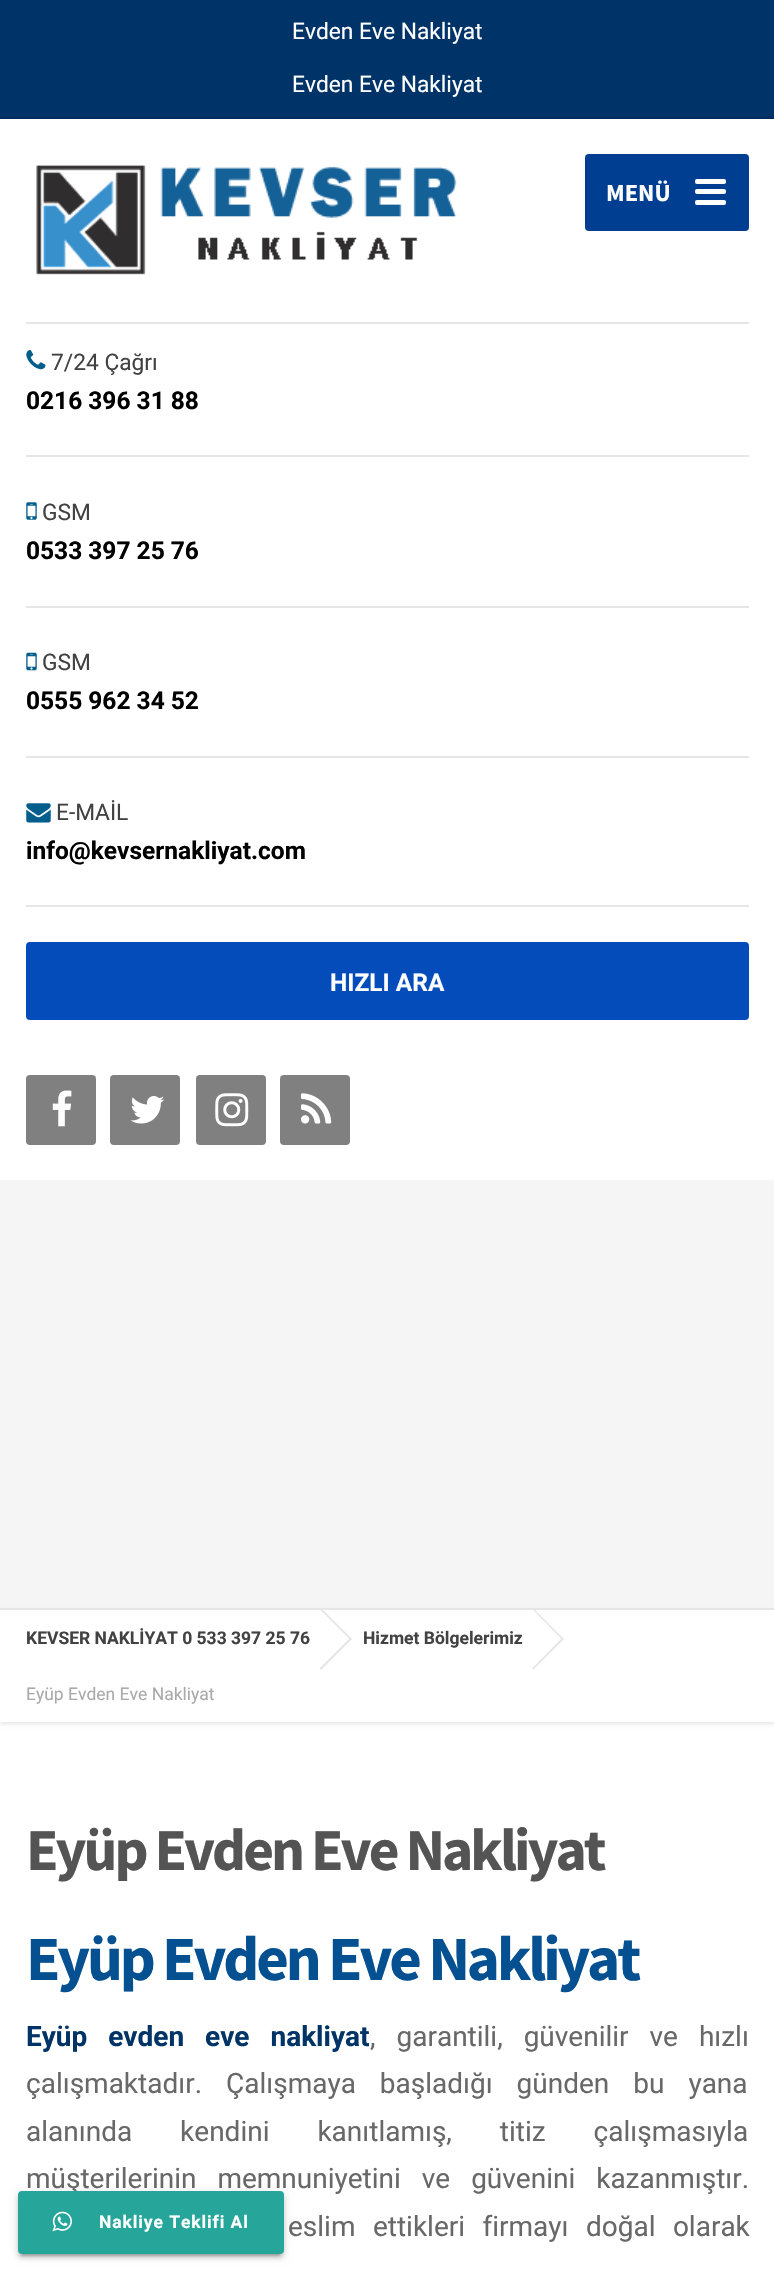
#include "include/core/SkBlurTypes.h"
#include "include/core/SkCanvas.h"
#include "include/core/SkData.h"
#include "include/core/SkFont.h"
#include "include/core/SkFontMgr.h"
#include "include/core/SkImage.h"
#include "include/core/SkMaskFilter.h"
#include "include/core/SkPaint.h"
#include "include/core/SkPathBuilder.h"
#include "include/core/SkTextBlob.h"
#include "include/effects/SkDashPathEffect.h"
#include "include/effects/SkGradientShader.h"
#include "include/utils/SkParsePath.h"

extern sk_sp<SkFontMgr> fontMgr;

static SkFont font(const char* family, int weight, float size, bool italic = false) {
    SkFontStyle style(weight, SkFontStyle::kNormal_Width,
        italic ? SkFontStyle::kItalic_Slant : SkFontStyle::kUpright_Slant);
    SkFont result(fontMgr->matchFamilyStyle(family, style), size);
    result.setSubpixel(true);
    return result;
}

static void drawLabel(SkCanvas* canvas, const char* s, float x, float y, const SkFont& font, SkColor color) {
    SkPaint ink(SkColor4f::FromColor(color));
    ink.setAntiAlias(true);
    canvas->drawString(s, x, y, font, ink);
}

static void drawTracked(SkCanvas* canvas, const char* s, float x, float y, const SkFont& font, const SkPaint& ink, float letter, float word) {
    std::vector<SkGlyphID> glyphs(font.countText(s, strlen(s), SkTextEncoding::kUTF8));
    std::vector<float> xs(glyphs.size());
    font.textToGlyphs(s, strlen(s), SkTextEncoding::kUTF8, glyphs);
    font.getXPos(glyphs, xs, x);
    float extra = 0;
    for (size_t i = 0; i < glyphs.size(); i++) {
        xs[i] += extra;
        extra += letter + word * (glyphs[i] == font.unicharToGlyph(' '));
    }
    canvas->drawTextBlob(SkTextBlob::MakeFromPosHGlyphs(glyphs, xs, y, font), 0, 0, ink);
}

static void fillRect(SkCanvas* canvas, float x, float y, float w, float h, SkColor color) {
    SkPaint ink(SkColor4f::FromColor(color));
    ink.setAntiAlias(true);
    canvas->drawRect(SkRect::MakeXYWH(x, y, w, h), ink);
}

static void fillRRect(SkCanvas* canvas, float x, float y, float w, float h, float radius, SkColor color) {
    SkPaint ink(SkColor4f::FromColor(color));
    ink.setAntiAlias(true);
    canvas->drawRoundRect(SkRect::MakeXYWH(x, y, w, h), radius, radius, ink);
}

static void drawPhoto(SkCanvas* canvas, const char* path, float x, float y, float w, float h) {
    auto image = SkImages::DeferredFromEncodedData(SkData::MakeFromFileName(path));
    canvas->drawImageRect(image, SkRect::MakeXYWH(x, y, w, h), SkSamplingOptions());
}

static SkPath parsePath(const char* data, bool evenOdd = false) {
    SkPath result = *SkParsePath::FromSVGString(data);
    if (evenOdd) result.setFillType(SkPathFillType::kEvenOdd);
    return result;
}

void draw(SkCanvas* canvas) {
    SkPaint paint;
    paint.setAntiAlias(true);
    canvas->clear(0xFFFFFFFF);
    fillRect(canvas, 0, 0, 774, 117, 0xFF003468);
    fillRect(canvas, 0, 117, 774, 2, 0xFF002C60);
    SkFont font1 = font("Roboto", 400, 22.75f);
    drawLabel(canvas, "Evden Eve Nakliyat", 292, 39, font1, 0xFFFFFFFF);
    drawLabel(canvas, "Evden Eve Nakliyat", 292, 92, font1, 0xFFFFFFFF);
    fillRect(canvas, 26, 322, 723, 2, 0xFFE6E6E6);
    drawPhoto(canvas, "assets/img1.png", 36, 165, 421, 110);
    fillRRect(canvas, 585, 154, 164, 77, 4, 0xFF003E91);
    SkFont font2 = font("Source Sans Pro", 700, 24.5f);
    drawLabel(canvas, "MENÜ", 606, 201, font2, 0xFFFFFFFF);
    fillRRect(canvas, 695, 179, 31, 5, 2, 0xFFFFFFFF);
    fillRRect(canvas, 695, 189, 31, 5, 2, 0xFFFFFFFF);
    fillRRect(canvas, 695, 200, 31, 5, 2, 0xFFFFFFFF);
    fillRect(canvas, 26, 455, 723, 2, 0xFFE6E6E6);
    drawPhoto(canvas, "assets/img2.png", 26, 350, 20, 20);
    drawLabel(canvas, "7/24 Çağrı", 51, 370, font1, 0xFF424242);
    SkFont font3 = font("Roboto", 700, 24.5f);
    drawLabel(canvas, "0216 396 31 88", 26, 409, font3, 0xFF000000);
    fillRect(canvas, 26, 606, 723, 2, 0xFFE6E6E6);
    drawPhoto(canvas, "assets/img3.png", 26, 502, 11, 18);
    drawLabel(canvas, "GSM", 42, 520, font1, 0xFF424242);
    drawLabel(canvas, "0533 397 25 76", 26, 559, font3, 0xFF000000);
    fillRect(canvas, 26, 756, 723, 2, 0xFFE6E6E6);
    drawPhoto(canvas, "assets/img4.png", 26, 652, 11, 19);
    drawLabel(canvas, "GSM", 42, 670, font1, 0xFF424242);
    drawLabel(canvas, "0555 962 34 52", 26, 709, font3, 0xFF000000);
    fillRect(canvas, 26, 905, 723, 2, 0xFFE6E6E6);
    drawPhoto(canvas, "assets/img5.png", 26, 803, 25, 20);
    drawLabel(canvas, "E-MAİL", 56, 820, font1, 0xFF424242);
    drawLabel(canvas, "info@kevsernakliyat.com", 26, 859, font3, 0xFF000000);
    paint.setColor(0xFF034CBA);
    canvas->drawRoundRect(SkRect::MakeXYWH(27, 943, 721, 76), 3, 3, paint);
    paint.setStroke(true);
    paint.setStrokeWidth(2);
    canvas->drawRoundRect(SkRect::MakeXYWH(27, 943, 721, 76), 3, 3, paint);
    drawLabel(canvas, "HIZLI ARA", 330, 991, font3, 0xFFFFFFFF);
    fillRRect(canvas, 26, 1075, 70, 70, 4, 0xFF808080);
    drawPhoto(canvas, "assets/img6.png", 52, 1090, 20, 37);
    fillRRect(canvas, 110, 1075, 70, 70, 4, 0xFF808080);
    drawPhoto(canvas, "assets/img7.png", 130, 1096, 35, 28);
    fillRRect(canvas, 196, 1075, 70, 70, 4, 0xFF808080);
    drawPhoto(canvas, "assets/img8.png", 215, 1093, 34, 34);
    fillRRect(canvas, 280, 1075, 70, 70, 4, 0xFF808080);
    drawPhoto(canvas, "assets/img9.png", 301, 1093, 31, 31);
    fillRect(canvas, 0, 1180, 774, 428, 0xFFF5F5F5);
    canvas->save();
    canvas->clipPath(parsePath("M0 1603H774V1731H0ZM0 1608H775V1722H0Z", true), true);
    paint.setStroke(false);
    paint.setColor(0xFFE6E6E6);
    paint.setMaskFilter(SkMaskFilter::MakeBlur(kNormal_SkBlurStyle, 2));
    canvas->drawRect(SkRect::MakeXYWH(0, 1610, 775, 114), paint);
    paint.setMaskFilter(nullptr);
    canvas->restore();
    fillRect(canvas, 0, 1608, 774, 2, 0xFFE6E6E6);
    SkFont font4 = font("Roboto", 700, 17.5f);
    drawLabel(canvas, "KEVSER NAKLİYAT 0 533 397 25 76", 26, 1644, font4, 0xFF424242);
    canvas->drawPath(parsePath("M319.5 1609L321 1608L352 1639L350.5 1640Z"), paint);
    canvas->drawPath(parsePath("M350.5 1637.5L352 1639L321 1670L319.5 1668.5Z"), paint);
    drawLabel(canvas, "Hizmet Bölgelerimiz", 363, 1644, font4, 0xFF424242);
    canvas->drawPath(parsePath("M532 1609L533 1608L564 1639L562.5 1640Z"), paint);
    canvas->drawPath(parsePath("M562.5 1637.5L564 1639L533 1670L532 1668.5Z"), paint);
    SkFont font5 = font("Roboto", 400, 17.5f);
    drawLabel(canvas, "Eyüp Evden Eve Nakliyat", 26, 1700, font5, 0xFFAAAAAA);
    SkFont font6 = font("Source Sans Pro", 700, 59.5f);
    paint.setColor(0xFF545454);
    drawTracked(canvas, "Eyüp Evden Eve Nakliyat", 26, 1870, font6, paint, -3, 0);
    SkFont font7 = font("Source Sans Pro", 700, 63);
    paint.setColor(0xFF045091);
    drawTracked(canvas, "Eyüp Evden Eve Nakliyat", 26, 1980, font7, paint, -3.15f, 0);
    SkFont font8 = font("Roboto", 700, 28);
    paint.setColor(0xFF003366);
    drawTracked(canvas, "Eyüp evden eve nakliyat", 26, 2046, font8, paint, 0, 14);
    SkFont font9 = font("Roboto", 400, 28);
    paint.setColor(0xFF686868);
    drawTracked(canvas, ", garantili, güvenilir ve hızlı", 370, 2046, font9, paint, 0, 14);
    drawTracked(canvas, "çalışmaktadır. Çalışmaya başladığı günden bu yana", 26, 2093, font9, paint, 0, 17);
    drawTracked(canvas, "alanında kendini kanıtlamış, titiz çalışmasıyla", 26, 2141, font9, paint, 0, 41);
    drawTracked(canvas, "müşterilerinin memnuniyetini ve güvenini kazanmıştır.", 26, 2188, font9, paint, 0, 14);
    drawTracked(canvas, "eslim ettikleri firmayı doğal olarak", 288, 2236, font9, paint, 0, 10.5f);
    paint.setColor(0x33000000);
    paint.setMaskFilter(SkMaskFilter::MakeBlur(kNormal_SkBlurStyle, 1));
    canvas->drawRect(SkRect::MakeXYWH(21, 2200, 259, 56), paint);
    paint.setMaskFilter(nullptr);
    paint.setColor(0x1F000000);
    paint.setMaskFilter(SkMaskFilter::MakeBlur(kNormal_SkBlurStyle, 4.5f));
    canvas->drawRoundRect(SkRect::MakeXYWH(18, 2193, 266, 63), 4, 4, paint);
    paint.setMaskFilter(nullptr);
    paint.setColor(0x24000000);
    paint.setMaskFilter(SkMaskFilter::MakeBlur(kNormal_SkBlurStyle, 2));
    canvas->drawRoundRect(SkRect::MakeXYWH(18, 2195, 266, 63), 4, 4, paint);
    paint.setMaskFilter(nullptr);
    fillRRect(canvas, 18, 2191, 266, 63, 4, 0xFF26A69A);
    drawPhoto(canvas, "assets/img10.png", 52, 2211, 20, 21);
    paint.setColor(0xFFFFFFFF);
    drawTracked(canvas, "Nakliye Teklifi Al", 99, 2228, font4, paint, 0.9f, 0);
}
